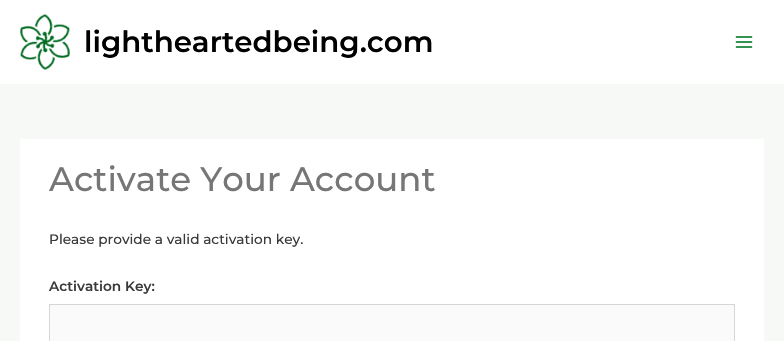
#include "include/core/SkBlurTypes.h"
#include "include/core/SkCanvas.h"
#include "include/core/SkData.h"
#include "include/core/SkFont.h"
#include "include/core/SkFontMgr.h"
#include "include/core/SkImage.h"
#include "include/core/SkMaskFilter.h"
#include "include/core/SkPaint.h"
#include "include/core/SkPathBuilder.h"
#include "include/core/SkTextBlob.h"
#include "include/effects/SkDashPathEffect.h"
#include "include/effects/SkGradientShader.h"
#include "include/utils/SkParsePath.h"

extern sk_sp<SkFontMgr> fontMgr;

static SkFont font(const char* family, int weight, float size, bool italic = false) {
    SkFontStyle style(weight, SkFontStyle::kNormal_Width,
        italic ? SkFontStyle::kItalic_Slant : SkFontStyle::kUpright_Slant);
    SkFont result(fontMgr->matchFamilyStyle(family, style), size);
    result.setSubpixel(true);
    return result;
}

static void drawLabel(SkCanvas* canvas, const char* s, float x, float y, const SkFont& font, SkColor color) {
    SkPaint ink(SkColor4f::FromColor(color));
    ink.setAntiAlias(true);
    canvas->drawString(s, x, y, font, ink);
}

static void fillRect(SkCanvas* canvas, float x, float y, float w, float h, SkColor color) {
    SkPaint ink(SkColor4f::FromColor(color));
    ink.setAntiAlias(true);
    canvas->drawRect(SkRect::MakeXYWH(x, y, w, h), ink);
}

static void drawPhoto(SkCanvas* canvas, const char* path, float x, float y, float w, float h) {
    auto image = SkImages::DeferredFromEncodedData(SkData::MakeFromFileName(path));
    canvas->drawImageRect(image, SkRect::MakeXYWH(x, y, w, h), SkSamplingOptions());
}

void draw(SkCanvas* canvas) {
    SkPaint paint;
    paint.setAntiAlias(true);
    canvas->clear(0xFFF6F9F6);
    fillRect(canvas, 0, 0, 784, 84, 0xFFFFFFFF);
    drawPhoto(canvas, "assets/img1.png", 20, 14, 50, 56);
    SkFont font1 = font("Montserrat", 600, 29.25f);
    drawLabel(canvas, "lightheartedbeing.com", 84, 52, font1, 0xFF000000);
    drawPhoto(canvas, "assets/img2.png", 735, 36, 18, 12);
    fillRect(canvas, 20, 139, 744, 202, 0xFFFFFFFF);
    SkFont font2 = font("Montserrat", 500, 34);
    drawLabel(canvas, "Activate Your Account", 49, 191, font2, 0xFF767676);
    SkFont font3 = font("Montserrat", 500, 13.7f);
    drawLabel(canvas, "Please provide a valid activation key.", 49, 244, font3, 0xFF3A3A3A);
    SkFont font4 = font("Montserrat", 600, 13.7f);
    drawLabel(canvas, "Activation Key:", 49, 291, font4, 0xFF3A3A3A);
    paint.setColor(0xFFFAFAFA);
    canvas->drawRect(SkRect::MakeXYWH(49.5f, 304.5f, 685, 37), paint);
    paint.setStroke(true);
    paint.setStrokeWidth(1);
    paint.setColor(0xFFD6D6D6);
    canvas->drawRect(SkRect::MakeXYWH(49.5f, 304.5f, 685, 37), paint);
}
